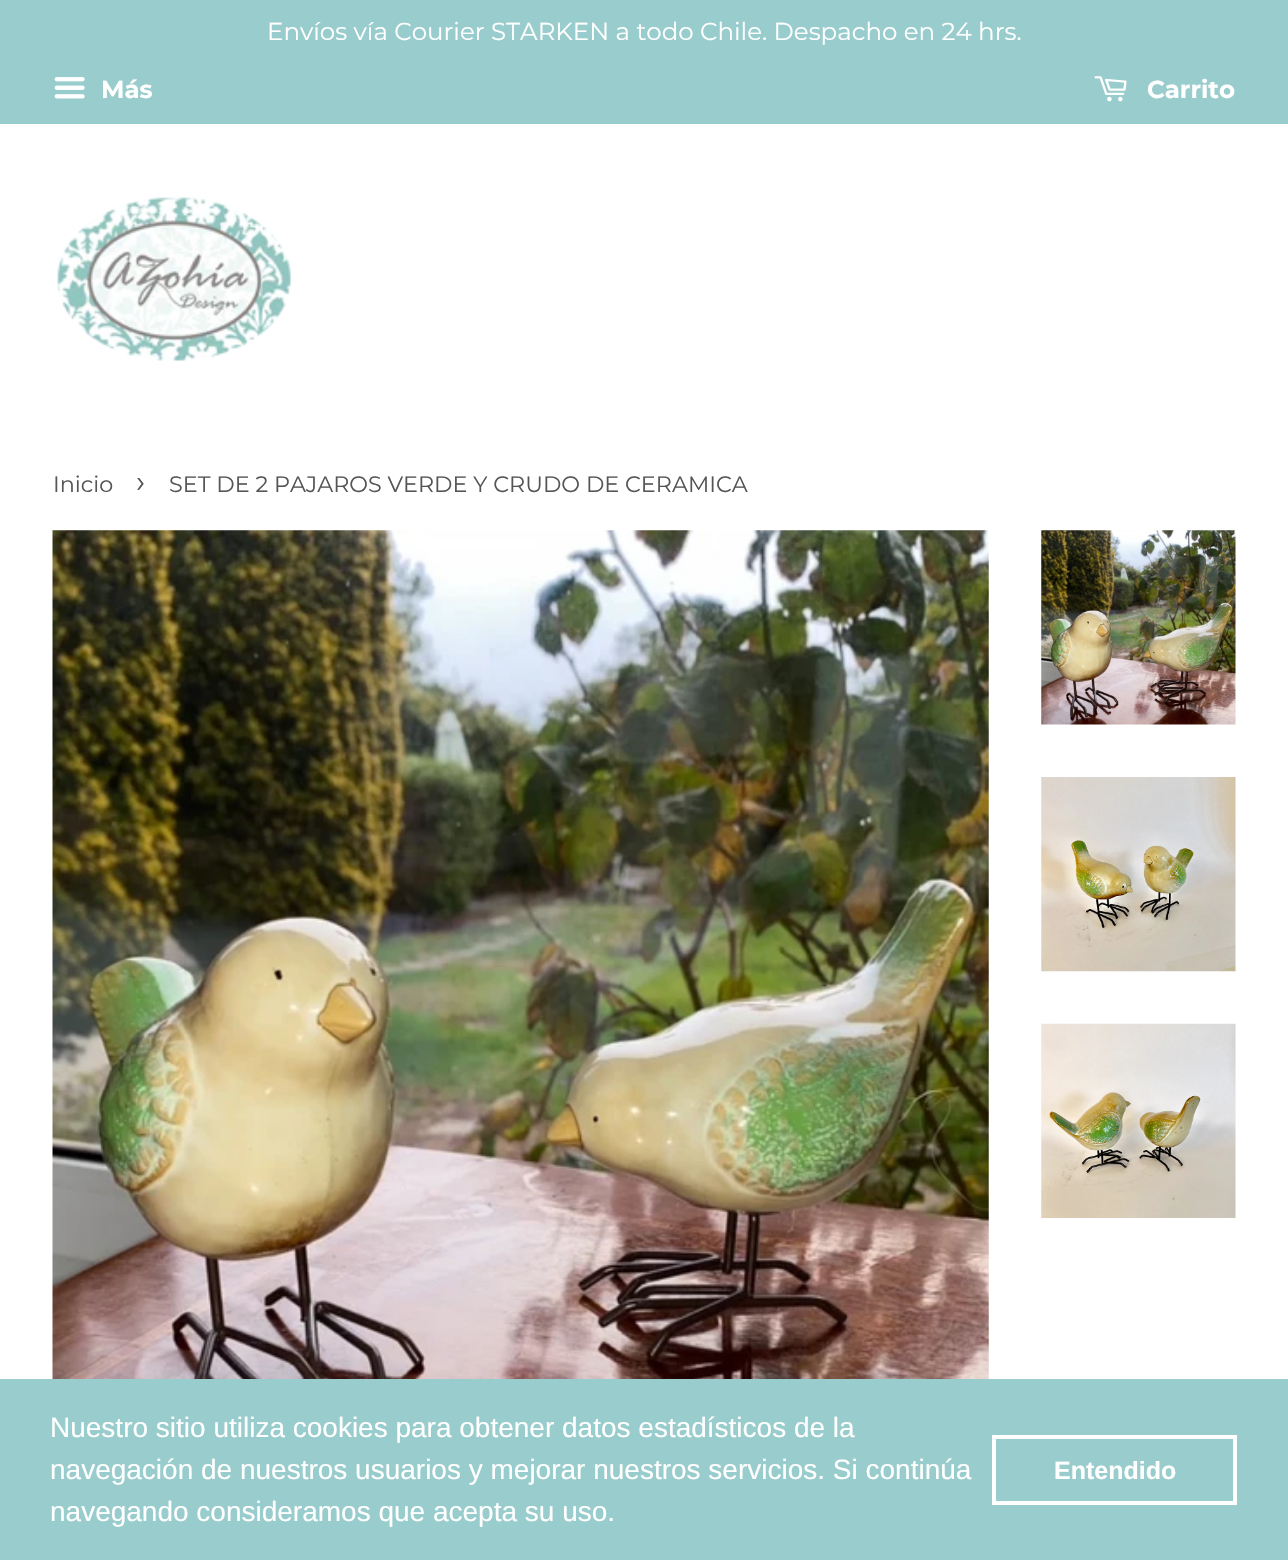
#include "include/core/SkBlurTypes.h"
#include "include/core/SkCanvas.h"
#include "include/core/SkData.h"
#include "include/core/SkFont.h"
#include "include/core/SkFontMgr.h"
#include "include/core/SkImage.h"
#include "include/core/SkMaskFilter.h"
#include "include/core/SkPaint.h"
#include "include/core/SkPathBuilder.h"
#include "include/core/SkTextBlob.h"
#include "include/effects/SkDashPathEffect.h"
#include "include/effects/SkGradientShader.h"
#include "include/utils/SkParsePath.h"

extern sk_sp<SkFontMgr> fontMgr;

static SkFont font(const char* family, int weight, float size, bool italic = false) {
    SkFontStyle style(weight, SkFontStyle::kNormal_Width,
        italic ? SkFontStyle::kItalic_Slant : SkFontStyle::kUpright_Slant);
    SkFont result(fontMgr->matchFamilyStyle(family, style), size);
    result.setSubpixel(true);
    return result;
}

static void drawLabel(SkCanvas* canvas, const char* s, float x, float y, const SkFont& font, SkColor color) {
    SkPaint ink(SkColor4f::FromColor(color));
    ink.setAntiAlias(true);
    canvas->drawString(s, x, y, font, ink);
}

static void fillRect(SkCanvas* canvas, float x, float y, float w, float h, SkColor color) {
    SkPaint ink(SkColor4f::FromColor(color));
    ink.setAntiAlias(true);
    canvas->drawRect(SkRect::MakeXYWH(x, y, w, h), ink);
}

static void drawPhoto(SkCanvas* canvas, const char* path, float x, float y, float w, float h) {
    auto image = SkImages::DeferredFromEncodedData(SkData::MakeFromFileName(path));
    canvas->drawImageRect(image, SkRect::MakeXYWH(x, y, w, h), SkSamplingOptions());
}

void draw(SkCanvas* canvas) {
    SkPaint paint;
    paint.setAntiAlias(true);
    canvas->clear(0xFFFFFFFF);
    fillRect(canvas, 0, 0, 1288, 124, 0xFF99CCCC);
    SkFont font1 = font("Montserrat", 400, 24.5f);
    drawLabel(canvas, "Envíos vía Courier STARKEN a todo Chile. Despacho en 24 hrs.", 267, 40, font1, 0xFFFFFFFF);
    drawPhoto(canvas, "assets/img1.png", 54, 77, 31, 22);
    SkFont font2 = font("Montserrat", 700, 24.5f);
    drawLabel(canvas, "Más", 101, 98, font2, 0xFFFFFFFF);
    drawPhoto(canvas, "assets/img2.png", 1094, 76, 33, 26);
    drawLabel(canvas, "Carrito", 1147, 98, font2, 0xFFFFFFFF);
    drawPhoto(canvas, "assets/img3.png", 57, 197, 234, 164);
    SkFont font3 = font("Montserrat", 400, 22.3f);
    drawLabel(canvas, "Inicio", 53, 492, font3, 0xFF555555);
    SkFont font4 = font("Montserrat", 400, 31);
    drawLabel(canvas, "›", 136, 492, font4, 0xFF555555);
    drawLabel(canvas, "SET DE 2 PAJAROS VERDE Y CRUDO DE CERAMICA", 169, 492, font3, 0xFF555555);
    drawPhoto(canvas, "assets/img4.png", 52, 530, 937, 849);
    drawPhoto(canvas, "assets/img5.png", 1041, 530, 195, 195);
    drawPhoto(canvas, "assets/img6.png", 1041, 777, 195, 195);
    drawPhoto(canvas, "assets/img7.png", 1041, 1023, 195, 195);
    fillRect(canvas, 0, 1379, 1288, 181, 0xFF99CCCC);
    SkFont font5 = font("Liberation Sans", 400, 28);
    drawLabel(canvas, "Nuestro sitio utiliza cookies para obtener datos estadísticos de la", 50, 1437, font5, 0xFFFFFFFF);
    drawLabel(canvas, "navegación de nuestros usuarios y mejorar nuestros servicios. Si continúa", 50, 1479, font5, 0xFFFFFFFF);
    drawLabel(canvas, "navegando consideramos que acepta su uso.", 50, 1521, font5, 0xFFFFFFFF);
    paint.setStroke(true);
    paint.setStrokeWidth(4);
    paint.setColor(0xFFFFFFFF);
    canvas->drawRect(SkRect::MakeXYWH(994, 1437, 241, 66), paint);
    SkFont font6 = font("Liberation Sans", 700, 25);
    drawLabel(canvas, "Entendido", 1054, 1479, font6, 0xFFFFFFFF);
}
